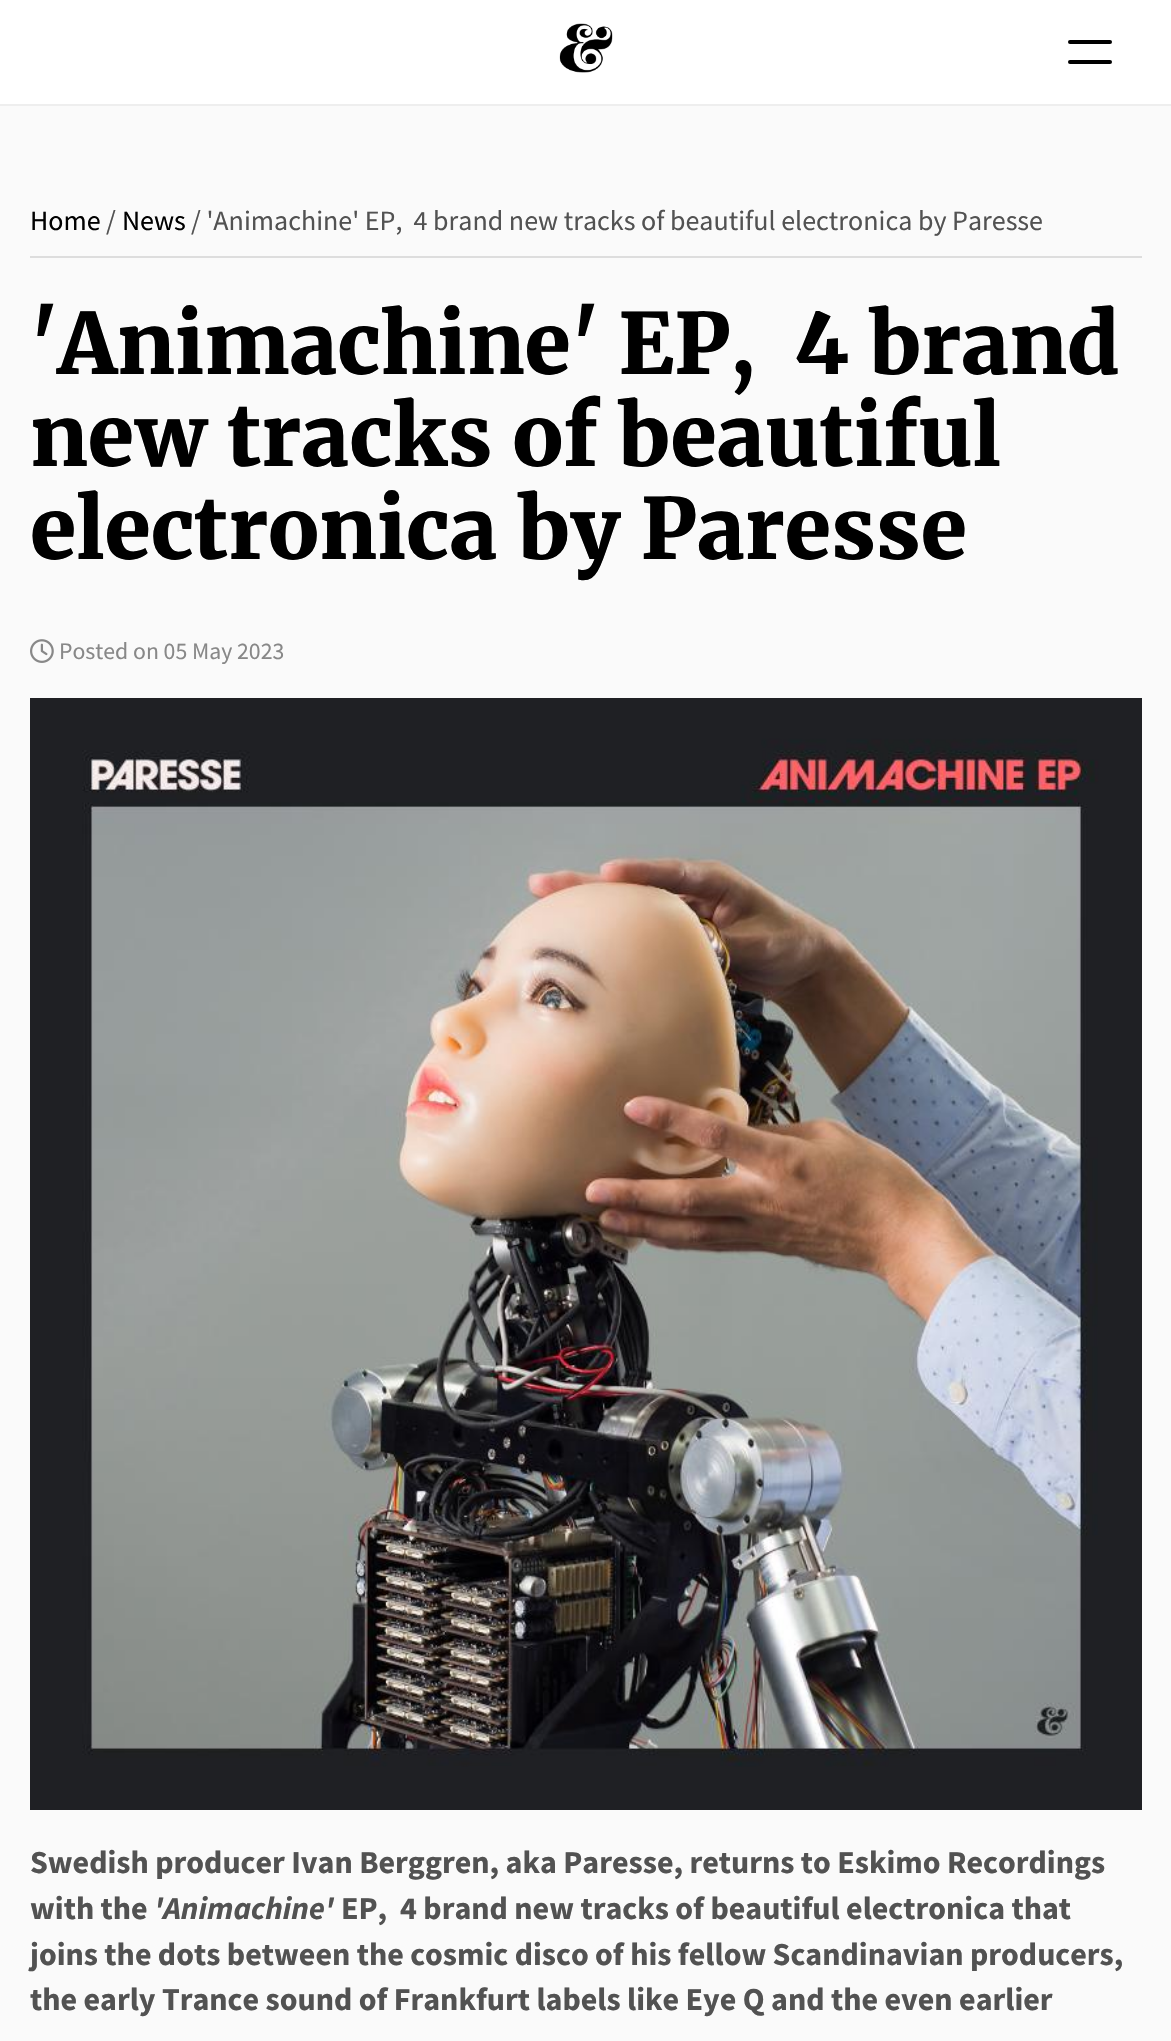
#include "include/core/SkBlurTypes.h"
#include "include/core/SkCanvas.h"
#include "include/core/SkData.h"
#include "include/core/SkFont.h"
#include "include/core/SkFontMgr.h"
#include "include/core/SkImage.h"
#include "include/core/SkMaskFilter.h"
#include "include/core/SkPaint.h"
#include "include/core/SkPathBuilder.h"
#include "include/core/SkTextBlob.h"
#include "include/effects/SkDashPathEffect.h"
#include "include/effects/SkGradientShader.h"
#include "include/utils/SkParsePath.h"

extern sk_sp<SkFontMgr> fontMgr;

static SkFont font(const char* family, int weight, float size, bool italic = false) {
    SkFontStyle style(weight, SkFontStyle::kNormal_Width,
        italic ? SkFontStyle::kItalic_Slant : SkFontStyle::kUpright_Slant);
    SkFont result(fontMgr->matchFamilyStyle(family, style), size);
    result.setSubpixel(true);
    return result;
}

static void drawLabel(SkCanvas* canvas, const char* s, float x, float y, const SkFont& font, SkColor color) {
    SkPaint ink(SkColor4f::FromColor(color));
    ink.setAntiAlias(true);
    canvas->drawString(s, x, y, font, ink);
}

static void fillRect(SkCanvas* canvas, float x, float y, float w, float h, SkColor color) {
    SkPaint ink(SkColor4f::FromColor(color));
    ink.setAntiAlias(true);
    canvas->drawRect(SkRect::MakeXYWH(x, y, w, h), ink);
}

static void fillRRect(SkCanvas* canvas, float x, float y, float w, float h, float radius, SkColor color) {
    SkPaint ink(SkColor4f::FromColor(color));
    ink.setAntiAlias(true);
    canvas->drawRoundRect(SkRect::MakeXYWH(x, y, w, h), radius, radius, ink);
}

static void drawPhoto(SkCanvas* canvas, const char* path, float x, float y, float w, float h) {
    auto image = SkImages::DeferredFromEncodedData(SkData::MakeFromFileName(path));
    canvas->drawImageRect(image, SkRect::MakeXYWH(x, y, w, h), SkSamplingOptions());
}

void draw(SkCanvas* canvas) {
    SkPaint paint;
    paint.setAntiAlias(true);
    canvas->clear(0xFFFAFAFA);
    fillRect(canvas, 0, 0, 1171, 104, 0xFFFFFFFF);
    fillRect(canvas, 0, 104, 1171, 2, 0xFFEEEEEE);
    drawPhoto(canvas, "assets/img1.png", 559, 23, 54, 50);
    fillRRect(canvas, 1068, 40, 44, 4, 2, 0xFF000000);
    fillRRect(canvas, 1068, 60, 44, 4, 2, 0xFF000000);
    fillRect(canvas, 30, 256, 1112, 2, 0xFFDDDDDD);
    SkFont font1 = font("Source Sans Pro", 400, 28);
    drawLabel(canvas, "Home", 30, 230, font1, 0xFF000000);
    drawLabel(canvas, "/", 106, 230, font1, 0xFF525252);
    drawLabel(canvas, "News", 122, 230, font1, 0xFF000000);
    drawLabel(canvas, "/ 'Animachine' EP,  4 brand new tracks of beautiful electronica by Paresse", 191, 230, font1, 0xFF525252);
    SkFont font2 = font("Merriweather", 900, 84);
    drawLabel(canvas, "'Animachine' EP,  4 brand", 30, 374, font2, 0xFF000000);
    drawLabel(canvas, "new tracks of beautiful", 30, 466, font2, 0xFF000000);
    drawLabel(canvas, "electronica by Paresse", 30, 559, font2, 0xFF000000);
    drawPhoto(canvas, "assets/img2.png", 30, 639, 24, 24);
    SkFont font3 = font("Source Sans Pro", 400, 23.75f);
    drawLabel(canvas, "Posted on 05 May 2023", 59, 659, font3, 0xFF888888);
    drawPhoto(canvas, "assets/img3.png", 30, 698, 1112, 1112);
    SkFont font4 = font("Source Sans Pro", 700, 32);
    drawLabel(canvas, "Swedish producer Ivan Berggren, aka Paresse, returns to Eskimo Recordings", 30, 1873, font4, 0xFF525252);
    drawLabel(canvas, "with the", 30, 1919, font4, 0xFF525252);
    SkFont font5 = font("Source Sans Pro", 700, 32, true);
    drawLabel(canvas, "'Animachine'", 154, 1919, font5, 0xFF525252);
    drawLabel(canvas, "EP,  4 brand new tracks of beautiful electronica that", 341, 1919, font4, 0xFF525252);
    drawLabel(canvas, "joins the dots between the cosmic disco of his fellow Scandinavian producers,", 30, 1965, font4, 0xFF525252);
    drawLabel(canvas, "the early Trance sound of Frankfurt labels like Eye Q and the even earlier", 30, 2010, font4, 0xFF525252);
}
